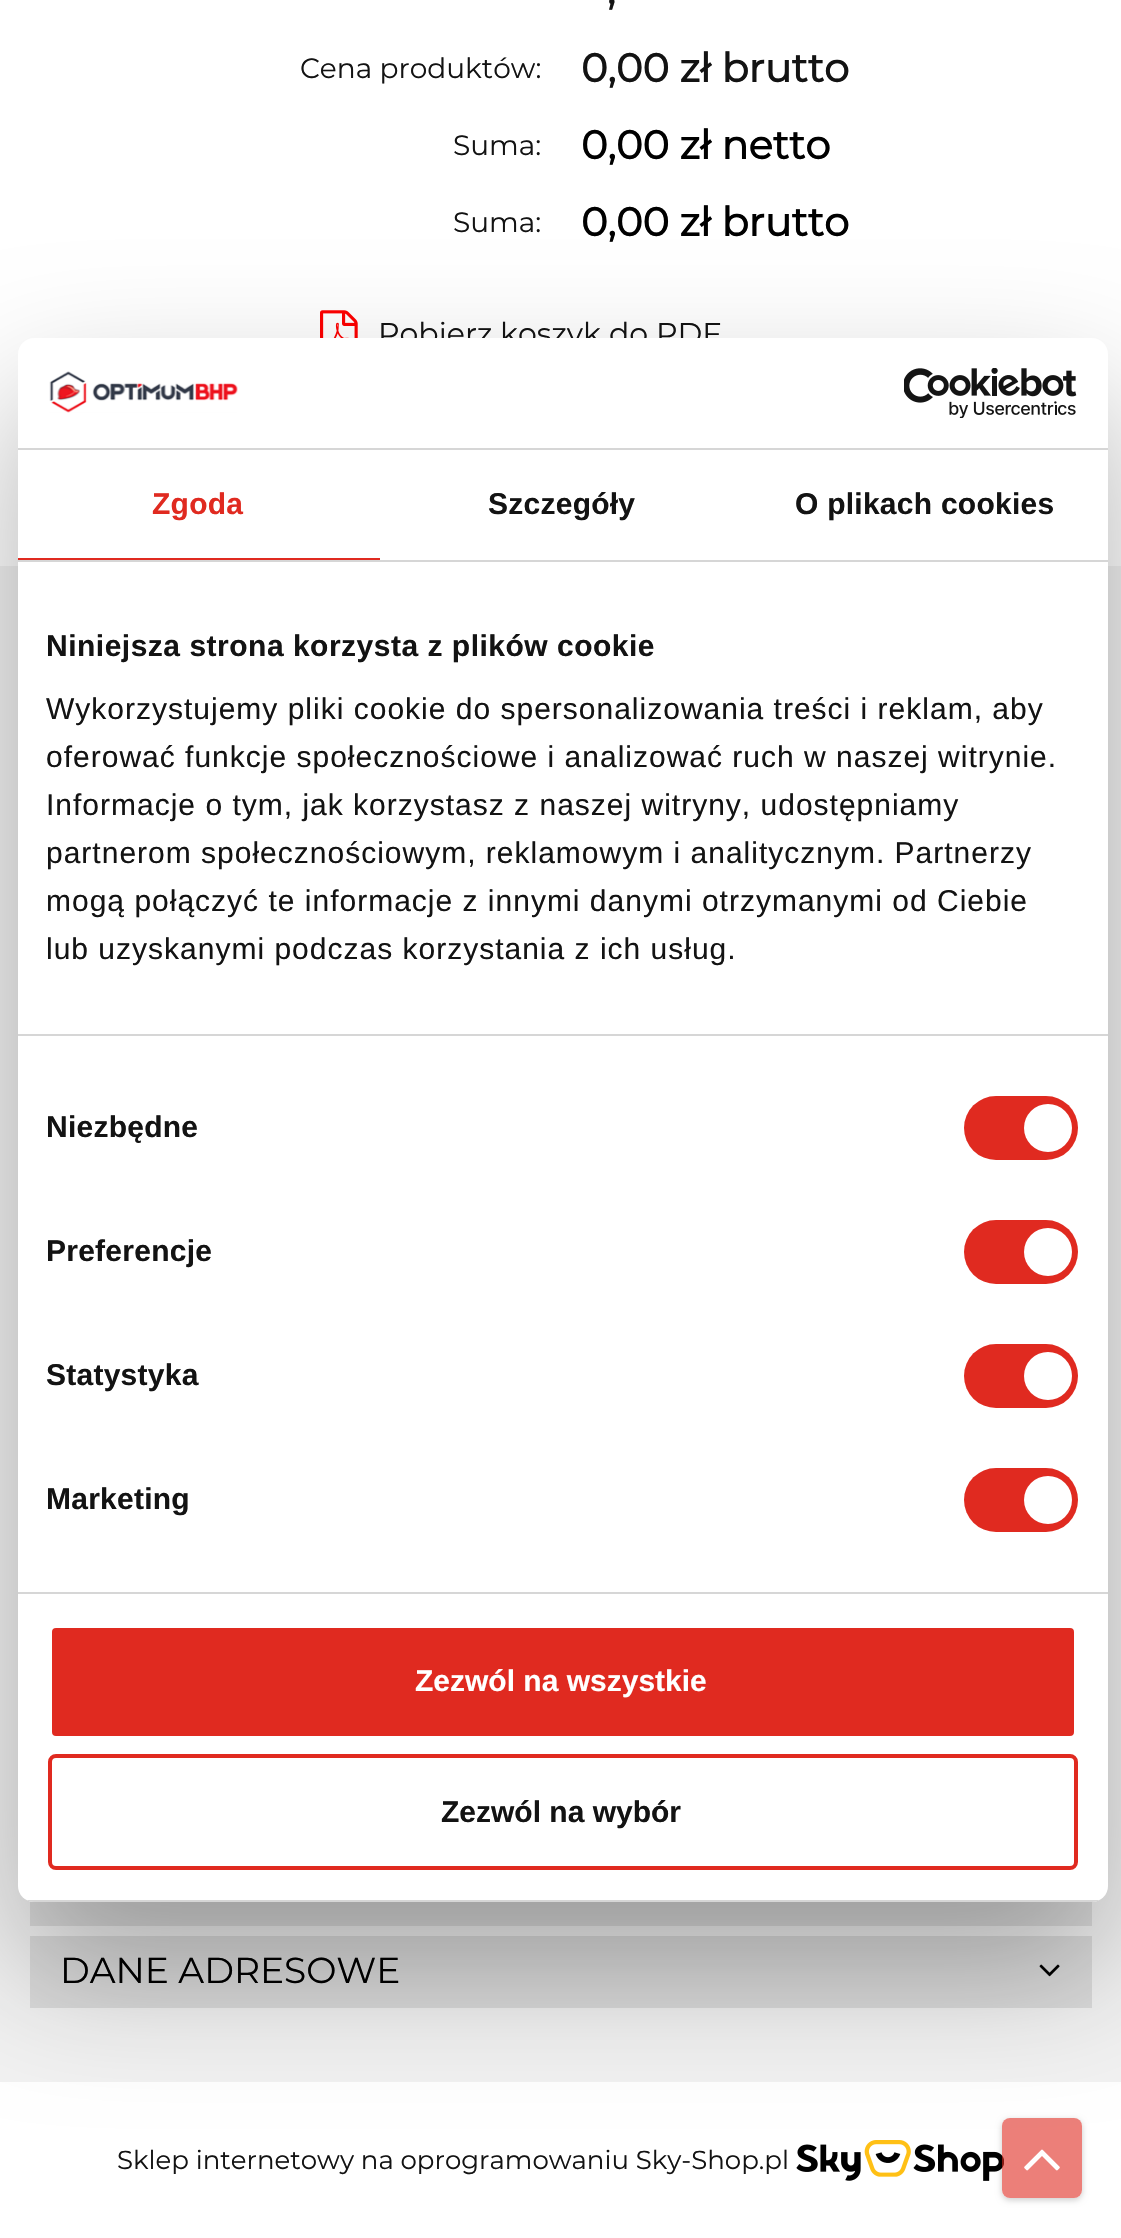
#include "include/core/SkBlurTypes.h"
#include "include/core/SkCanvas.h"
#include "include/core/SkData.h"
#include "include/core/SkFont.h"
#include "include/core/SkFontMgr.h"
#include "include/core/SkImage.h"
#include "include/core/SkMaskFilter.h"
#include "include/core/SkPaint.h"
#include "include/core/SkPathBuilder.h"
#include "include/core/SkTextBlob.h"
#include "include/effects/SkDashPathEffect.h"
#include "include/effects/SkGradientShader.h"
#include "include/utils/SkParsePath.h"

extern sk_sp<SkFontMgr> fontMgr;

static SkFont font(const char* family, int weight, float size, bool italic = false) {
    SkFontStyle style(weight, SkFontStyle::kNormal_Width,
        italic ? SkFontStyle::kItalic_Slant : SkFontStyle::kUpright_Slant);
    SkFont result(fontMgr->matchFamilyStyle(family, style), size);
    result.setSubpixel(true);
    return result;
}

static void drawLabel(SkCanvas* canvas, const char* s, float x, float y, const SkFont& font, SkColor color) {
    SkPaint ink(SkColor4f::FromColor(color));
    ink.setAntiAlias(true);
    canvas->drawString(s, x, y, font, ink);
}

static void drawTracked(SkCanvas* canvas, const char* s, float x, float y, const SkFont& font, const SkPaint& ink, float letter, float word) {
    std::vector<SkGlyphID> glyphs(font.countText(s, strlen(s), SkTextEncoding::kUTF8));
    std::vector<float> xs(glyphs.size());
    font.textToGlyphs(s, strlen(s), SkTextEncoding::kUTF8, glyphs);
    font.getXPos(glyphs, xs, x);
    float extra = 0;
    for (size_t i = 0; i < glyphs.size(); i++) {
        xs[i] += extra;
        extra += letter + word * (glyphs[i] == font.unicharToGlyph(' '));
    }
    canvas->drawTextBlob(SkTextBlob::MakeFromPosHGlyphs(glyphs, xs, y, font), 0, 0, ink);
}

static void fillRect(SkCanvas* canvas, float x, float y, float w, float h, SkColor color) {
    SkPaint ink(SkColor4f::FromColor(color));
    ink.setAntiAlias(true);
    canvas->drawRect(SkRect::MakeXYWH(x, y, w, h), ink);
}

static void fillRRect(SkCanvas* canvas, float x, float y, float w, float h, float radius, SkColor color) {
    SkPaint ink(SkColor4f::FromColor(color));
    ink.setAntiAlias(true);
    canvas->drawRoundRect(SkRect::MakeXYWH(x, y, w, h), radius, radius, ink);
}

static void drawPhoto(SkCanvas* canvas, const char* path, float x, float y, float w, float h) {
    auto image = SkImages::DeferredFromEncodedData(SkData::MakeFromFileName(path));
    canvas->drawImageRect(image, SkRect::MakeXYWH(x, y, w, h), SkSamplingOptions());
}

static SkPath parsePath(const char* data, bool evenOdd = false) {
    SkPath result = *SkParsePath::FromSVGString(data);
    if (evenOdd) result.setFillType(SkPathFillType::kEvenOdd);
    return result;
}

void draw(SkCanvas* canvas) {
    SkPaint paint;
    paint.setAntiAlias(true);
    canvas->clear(0xFFF2F2F2);
    fillRect(canvas, 0, 0, 1121, 566, 0xFFFFFFFF);
    SkFont font1 = font("Montserrat", 700, 40);
    drawLabel(canvas, ",", 607, 4, font1, 0xFF131313);
    SkFont font2 = font("Montserrat", 100, 28);
    drawLabel(canvas, "Cena produktów:", 300, 78, font2, 0xFF131313);
    drawLabel(canvas, "0,00 zł brutto", 581, 82, font1, 0xFF131313);
    drawLabel(canvas, "Suma:", 453, 155, font2, 0xFF131313);
    drawLabel(canvas, "0,00 zł netto", 581, 159, font1, 0xFF000000);
    drawLabel(canvas, "Suma:", 453, 232, font2, 0xFF131313);
    drawLabel(canvas, "0,00 zł brutto", 581, 236, font1, 0xFF000000);
    drawPhoto(canvas, "assets/img1.png", 320, 310, 38, 28);
    SkFont font3 = font("Montserrat", 100, 30);
    drawLabel(canvas, "Pobierz koszyk do PDF", 378, 344, font3, 0xFF131313);
    fillRect(canvas, 30, 1901, 1062, 25, 0xFFDCDCDC);
    fillRect(canvas, 30, 1936, 1062, 72, 0xFFDCDCDC);
    SkFont font4 = font("Montserrat", 100, 36);
    drawLabel(canvas, "DANE ADRESOWE", 60, 1983, font4, 0xFF000000);
    drawPhoto(canvas, "assets/img2.png", 1039, 1964, 21, 13);
    fillRect(canvas, 0, 2082, 1121, 156, 0xFFFFFFFF);
    SkFont font5 = font("Montserrat", 100, 26);
    drawLabel(canvas, "Sklep internetowy na oprogramowaniu Sky-Shop.pl", 117, 2169, font5, 0xFF131313);
    drawPhoto(canvas, "assets/img3.png", 796, 2140, 208, 41);
    canvas->save();
    canvas->clipPath(parsePath("M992 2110H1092V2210H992ZM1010 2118H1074C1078.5 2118 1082 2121.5 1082 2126V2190C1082 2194.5 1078.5 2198 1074 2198H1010C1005.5 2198 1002 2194.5 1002 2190V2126C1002 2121.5 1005.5 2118 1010 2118Z", true), true);
    paint.setColor(0x33000000);
    paint.setMaskFilter(SkMaskFilter::MakeBlur(kNormal_SkBlurStyle, 3));
    canvas->drawRoundRect(SkRect::MakeXYWH(1002, 2120, 80, 80), 8, 8, paint);
    paint.setMaskFilter(nullptr);
    canvas->restore();
    fillRRect(canvas, 1002, 2118, 80, 80, 8, 0x99E02A20);
    drawPhoto(canvas, "assets/img6.png", 1024, 2149, 36, 22);
    paint.setColor(0x4D000000);
    paint.setMaskFilter(SkMaskFilter::MakeBlur(kNormal_SkBlurStyle, 68));
    canvas->drawRoundRect(SkRect::MakeXYWH(18, 402, 1090, 1564), 16, 16, paint);
    paint.setMaskFilter(nullptr);
    fillRRect(canvas, 18, 338, 1090, 1564, 16, 0xFFFFFFFF);
    fillRect(canvas, 18, 448, 1090, 2, 0xFFD6D6D6);
    drawPhoto(canvas, "assets/img4.png", 49, 371, 189, 42);
    drawPhoto(canvas, "assets/img5.png", 904, 368, 173, 50);
    fillRect(canvas, 18, 560, 1090, 2, 0xFFD6D6D6);
    fillRect(canvas, 18, 558, 362, 2, 0xFFE02A20);
    SkFont font6 = font("Liberation Sans", 700, 30);
    paint.setColor(0xFFE02A20);
    drawTracked(canvas, "Zgoda", 152, 514, font6, paint, 0.25f, 0);
    paint.setColor(0xFF131313);
    drawTracked(canvas, "Szczegóły", 488, 514, font6, paint, 0.25f, 0);
    drawTracked(canvas, "O plikach cookies", 795, 514, font6, paint, 0.25f, 0);
    fillRect(canvas, 18, 1034, 1090, 2, 0xFFD6D6D6);
    drawTracked(canvas, "Niniejsza strona korzysta z plików cookie", 46, 656, font6, paint, 0.5f, 0);
    SkFont font7 = font("Liberation Sans", 400, 30);
    drawTracked(canvas, "Wykorzystujemy pliki cookie do spersonalizowania treści i reklam, aby", 46, 719, font7, paint, 1, 0);
    drawTracked(canvas, "oferować funkcje społecznościowe i analizować ruch w naszej witrynie.", 46, 767, font7, paint, 1, 0);
    drawTracked(canvas, "Informacje o tym, jak korzystasz z naszej witryny, udostępniamy", 46, 815, font7, paint, 1, 0);
    drawTracked(canvas, "partnerom społecznościowym, reklamowym i analitycznym. Partnerzy", 46, 863, font7, paint, 1, 0);
    drawTracked(canvas, "mogą połączyć te informacje z innymi danymi otrzymanymi od Ciebie", 46, 911, font7, paint, 1, 0);
    drawTracked(canvas, "lub uzyskanymi podczas korzystania z ich usług.", 46, 959, font7, paint, 1, 0);
    fillRect(canvas, 18, 1592, 1090, 2, 0xFFD6D6D6);
    drawTracked(canvas, "Niezbędne", 46, 1137, font6, paint, 0.25f, 0);
    fillRRect(canvas, 964, 1096, 114, 64, 32, 0xFFE02A20);
    paint.setColor(0xFFFFFFFF);
    canvas->drawCircle(1048, 1128, 24, paint);
    paint.setColor(0xFF131313);
    drawTracked(canvas, "Preferencje", 46, 1261, font6, paint, 0.25f, 0);
    fillRRect(canvas, 964, 1220, 114, 64, 32, 0xFFE02A20);
    paint.setColor(0xFFFFFFFF);
    canvas->drawCircle(1048, 1252, 24, paint);
    paint.setColor(0xFF131313);
    drawTracked(canvas, "Statystyka", 46, 1385, font6, paint, 0.25f, 0);
    fillRRect(canvas, 964, 1344, 114, 64, 32, 0xFFE02A20);
    paint.setColor(0xFFFFFFFF);
    canvas->drawCircle(1048, 1376, 24, paint);
    paint.setColor(0xFF131313);
    drawTracked(canvas, "Marketing", 46, 1509, font6, paint, 0.25f, 0);
    fillRRect(canvas, 964, 1468, 114, 64, 32, 0xFFE02A20);
    paint.setColor(0xFFFFFFFF);
    canvas->drawCircle(1048, 1500, 24, paint);
    canvas->save();
    canvas->clipPath(parsePath("M34 338H1092C1101 338 1108 345 1108 354V1886C1108 1895 1101 1902 1092 1902H34C25 1902 18 1895 18 1886V354C18 345 25 338 34 338Z"), true);
    fillRect(canvas, 18, 1900, 1090, 2, 0xFFD6D6D6);
    canvas->restore();
    paint.setColor(0xFFE02A20);
    canvas->drawRoundRect(SkRect::MakeXYWH(50, 1626, 1026, 112), 6, 6, paint);
    paint.setStroke(true);
    paint.setStrokeWidth(4);
    paint.setColor(0xFFFFFFFF);
    canvas->drawRoundRect(SkRect::MakeXYWH(50, 1626, 1026, 112), 6, 6, paint);
    drawLabel(canvas, "Zezwól na wszystkie", 415, 1691, font6, 0xFFFFFFFF);
    paint.setColor(0xFFE02A20);
    canvas->drawRoundRect(SkRect::MakeXYWH(50, 1756, 1026, 112), 6, 6, paint);
    drawLabel(canvas, "Zezwól na wybór", 441, 1822, font6, 0xFF131313);
}
